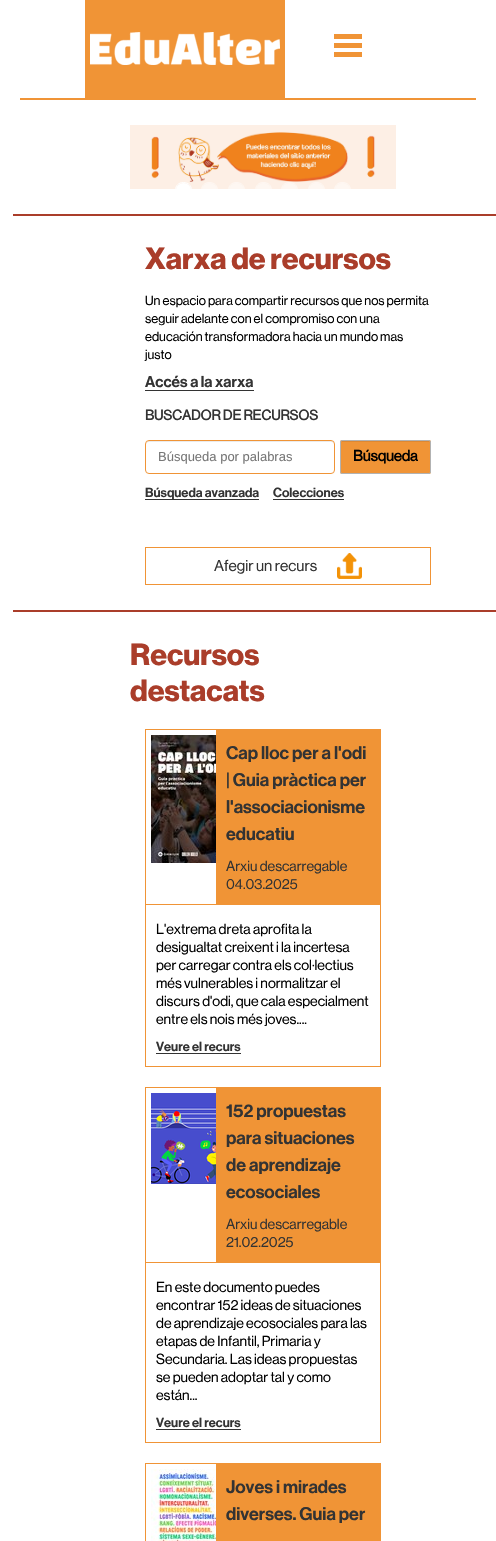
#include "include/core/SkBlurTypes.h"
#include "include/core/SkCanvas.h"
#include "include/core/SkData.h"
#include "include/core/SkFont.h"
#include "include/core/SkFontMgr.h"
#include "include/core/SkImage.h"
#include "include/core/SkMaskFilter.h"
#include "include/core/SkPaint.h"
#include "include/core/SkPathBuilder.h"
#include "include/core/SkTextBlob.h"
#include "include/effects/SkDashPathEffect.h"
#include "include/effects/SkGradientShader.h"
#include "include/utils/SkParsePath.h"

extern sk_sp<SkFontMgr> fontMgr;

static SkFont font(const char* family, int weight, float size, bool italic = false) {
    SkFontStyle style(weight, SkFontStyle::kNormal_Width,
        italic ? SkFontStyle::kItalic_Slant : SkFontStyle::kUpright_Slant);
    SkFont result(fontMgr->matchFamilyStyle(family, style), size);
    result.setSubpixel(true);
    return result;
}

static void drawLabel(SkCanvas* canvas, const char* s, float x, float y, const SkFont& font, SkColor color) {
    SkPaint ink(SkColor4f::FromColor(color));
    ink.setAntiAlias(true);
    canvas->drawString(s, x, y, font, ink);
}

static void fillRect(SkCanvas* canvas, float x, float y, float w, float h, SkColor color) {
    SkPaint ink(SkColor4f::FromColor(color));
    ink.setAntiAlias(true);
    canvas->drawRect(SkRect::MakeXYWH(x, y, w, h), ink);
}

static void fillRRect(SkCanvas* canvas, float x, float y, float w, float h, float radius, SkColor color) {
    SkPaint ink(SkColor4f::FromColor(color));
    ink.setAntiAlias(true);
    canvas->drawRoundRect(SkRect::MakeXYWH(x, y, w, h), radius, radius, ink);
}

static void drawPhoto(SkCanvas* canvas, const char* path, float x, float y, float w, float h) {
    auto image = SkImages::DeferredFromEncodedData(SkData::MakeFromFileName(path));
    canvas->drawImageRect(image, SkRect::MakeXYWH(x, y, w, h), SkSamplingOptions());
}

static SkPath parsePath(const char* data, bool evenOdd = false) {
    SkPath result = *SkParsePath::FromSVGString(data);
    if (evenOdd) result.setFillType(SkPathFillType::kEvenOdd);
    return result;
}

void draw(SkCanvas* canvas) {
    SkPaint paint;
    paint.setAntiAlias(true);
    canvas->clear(0xFFFFFFFF);
    fillRect(canvas, 20, 98, 456, 2, 0xFFF09436);
    fillRect(canvas, 85, 0, 200, 98, 0xFFF09436);
    drawPhoto(canvas, "assets/img1.png", 90, 32, 190, 33);
    fillRect(canvas, 334, 34, 28, 5, 0xFFF09436);
    fillRect(canvas, 334, 43, 28, 5, 0xFFF09436);
    fillRect(canvas, 334, 52, 28, 5, 0xFFF09436);
    drawPhoto(canvas, "assets/img2.png", 130, 125, 266, 64);
    paint.setColor(0xFFFFFFFF);
    canvas->drawOval(SkRect::MakeXYWH(176, 183, 15, 13), paint);
    paint.setStroke(true);
    paint.setStrokeWidth(1);
    canvas->drawPath(parsePath("M183.5 182.5C194 182.5 194 196.5 183.5 196.5C173 196.5 173 182.5 183.5 182.5Z"), paint);
    paint.setStroke(false);
    paint.setColor(0x80FFFFFF);
    canvas->drawOval(SkRect::MakeXYWH(202, 183, 15, 13), paint);
    paint.setStroke(true);
    canvas->drawPath(parsePath("M209.5 182.5C220 182.5 220 196.5 209.5 196.5C199 196.5 199 182.5 209.5 182.5Z"), paint);
    paint.setStroke(false);
    canvas->drawOval(SkRect::MakeXYWH(229, 183, 15, 13), paint);
    paint.setStroke(true);
    canvas->drawPath(parsePath("M236.5 182.5C247 182.5 247 196.5 236.5 196.5C226 196.5 226 182.5 236.5 182.5Z"), paint);
    paint.setStroke(false);
    canvas->drawOval(SkRect::MakeXYWH(256, 183, 15, 13), paint);
    paint.setStroke(true);
    canvas->drawPath(parsePath("M263.5 182.5C274 182.5 274 196.5 263.5 196.5C253 196.5 253 182.5 263.5 182.5Z"), paint);
    paint.setStroke(false);
    canvas->drawOval(SkRect::MakeXYWH(282, 183, 15, 13), paint);
    paint.setStroke(true);
    canvas->drawPath(parsePath("M289.5 182.5C300 182.5 300 196.5 289.5 196.5C279 196.5 279 182.5 289.5 182.5Z"), paint);
    paint.setStroke(false);
    canvas->drawOval(SkRect::MakeXYWH(309, 183, 15, 13), paint);
    paint.setStroke(true);
    canvas->drawPath(parsePath("M316.5 182.5C327 182.5 327 196.5 316.5 196.5C306 196.5 306 182.5 316.5 182.5Z"), paint);
    paint.setStroke(false);
    canvas->drawOval(SkRect::MakeXYWH(335, 183, 15, 13), paint);
    paint.setStroke(true);
    canvas->drawPath(parsePath("M342.5 182.5C353 182.5 353 196.5 342.5 196.5C332 196.5 332 182.5 342.5 182.5Z"), paint);
    fillRect(canvas, 13, 214, 483, 2, 0xFFAA3D2A);
    SkFont font1 = font("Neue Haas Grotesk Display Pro", 700, 30);
    drawLabel(canvas, "Xarxa de recursos", 145, 269, font1, 0xFFAA3D2A);
    SkFont font2 = font("Neue Haas Grotesk Display Pro", 400, 13);
    drawLabel(canvas, "Un espacio para compartir recursos que nos permita", 145, 305, font2, 0xFF000000);
    drawLabel(canvas, "seguir adelante con el compromiso con una", 145, 323, font2, 0xFF000000);
    drawLabel(canvas, "educación transformadora hacia un mundo mas", 145, 341, font2, 0xFF000000);
    drawLabel(canvas, "justo", 145, 359, font2, 0xFF000000);
    SkFont font3 = font("Neue Haas Grotesk Display Pro", 600, 15.5f);
    drawLabel(canvas, "Accés a la xarxa", 145, 387, font3, 0xFF333333);
    fillRect(canvas, 145, 390, 109, 1, 0xFF333333);
    SkFont font4 = font("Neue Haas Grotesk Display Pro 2", 700, 14);
    drawLabel(canvas, "BUSCADOR DE RECURSOS", 145, 420, font4, 0xFF333333);
    paint.setStroke(false);
    paint.setColor(0xFFEBEBEB);
    canvas->drawPath(parsePath("M149 442H331C333 442 334 443 334 445C334 443 333 441 331 441H149C147 441 146 443 146 445C146 443 147 442 149 442Z"), paint);
    paint.setStroke(true);
    paint.setColor(0xFFF09436);
    canvas->drawRoundRect(SkRect::MakeXYWH(145.5f, 440.5f, 189, 33), 3.5f, 3.5f, paint);
    SkFont font5 = font("Liberation Sans", 400, 13);
    drawLabel(canvas, "Búsqueda por palabras", 158, 461, font5, 0xFF777777);
    fillRRect(canvas, 340, 440, 91, 34, 2, 0xFFF09436);
    paint.setStroke(false);
    paint.setColor(0xFFDD8832);
    canvas->drawPath(parsePath("M342 442H429C430 442 430 442 430 443C430 442 430 441 429 441H342C341 441 341 442 341 443C341 442 341 442 342 442Z"), paint);
    paint.setStroke(true);
    paint.setColor(0xFFB2B2B2);
    canvas->drawRoundRect(SkRect::MakeXYWH(340.5f, 440.5f, 90, 33), 1.5f, 1.5f, paint);
    SkFont font6 = font("Neue Haas Grotesk Display Pro 2", 700, 15);
    drawLabel(canvas, "Búsqueda", 353, 461, font6, 0xFF000000);
    fillRect(canvas, 145, 499, 114, 1, 0xFF333333);
    SkFont font7 = font("Neue Haas Grotesk Display Pro", 600, 13);
    drawLabel(canvas, "Búsqueda avanzada", 145, 497, font7, 0xFF333333);
    drawLabel(canvas, "Colecciones", 273, 497, font7, 0xFF333333);
    fillRect(canvas, 273, 499, 71, 1, 0xFF333333);
    paint.setColor(0xFFF09436);
    canvas->drawRect(SkRect::MakeXYWH(145.5f, 547.5f, 285, 37), paint);
    SkFont font8 = font("Neue Haas Grotesk Display Pro", 400, 15.5f);
    drawLabel(canvas, "Afegir un recurs", 214, 571, font8, 0xFF333333);
    drawPhoto(canvas, "assets/img3.png", 337, 553, 25, 26);
    fillRect(canvas, 13, 610, 483, 2, 0xFFAA3D2A);
    drawLabel(canvas, "Recursos", 130, 665, font1, 0xFFAA3D2A);
    drawLabel(canvas, "destacats", 130, 701, font1, 0xFFAA3D2A);
    canvas->drawRect(SkRect::MakeXYWH(145.5f, 729.5f, 235, 337), paint);
    fillRect(canvas, 146, 904, 234, 1, 0xFFF09436);
    drawPhoto(canvas, "assets/img4.png", 151, 735, 65, 128);
    fillRect(canvas, 216, 730, 164, 174, 0xFFF09436);
    SkFont font9 = font("Neue Haas Grotesk Display Pro", 600, 18);
    drawLabel(canvas, "Cap lloc per a l'odi", 226, 759, font9, 0xFF333333);
    drawLabel(canvas, "| Guia pràctica per", 226, 786, font9, 0xFF333333);
    drawLabel(canvas, "l'associacionisme", 226, 813, font9, 0xFF333333);
    drawLabel(canvas, "educatiu", 226, 840, font9, 0xFF333333);
    SkFont font10 = font("Neue Haas Grotesk Display Pro", 400, 14.25f);
    drawLabel(canvas, "Arxiu descarregable", 226, 871, font10, 0xFF333333);
    drawLabel(canvas, "04.03.2025", 226, 889, font10, 0xFF333333);
    drawLabel(canvas, "L'extrema dreta aprofita la", 156, 934, font10, 0xFF000000);
    drawLabel(canvas, "desigualtat creixent i la incertesa", 156, 952, font10, 0xFF000000);
    drawLabel(canvas, "per carregar contra els col·lectius", 156, 970, font10, 0xFF000000);
    drawLabel(canvas, "més vulnerables i normalitzar el", 156, 988, font10, 0xFF000000);
    drawLabel(canvas, "discurs d'odi, que cala especialment", 156, 1006, font10, 0xFF000000);
    drawLabel(canvas, "entre els nois més joves....", 156, 1024, font10, 0xFF000000);
    drawLabel(canvas, "Veure el recurs", 156, 1051, font7, 0xFF333333);
    fillRect(canvas, 156, 1053, 85, 1, 0xFF333333);
    canvas->drawRect(SkRect::MakeXYWH(145.5f, 1087.5f, 235, 355), paint);
    fillRect(canvas, 146, 1262, 234, 1, 0xFFF09436);
    drawPhoto(canvas, "assets/img5.png", 151, 1093, 65, 91);
    fillRect(canvas, 216, 1088, 164, 174, 0xFFF09436);
    drawLabel(canvas, "152 propuestas", 226, 1117, font9, 0xFF333333);
    drawLabel(canvas, "para situaciones", 226, 1144, font9, 0xFF333333);
    drawLabel(canvas, "de aprendizaje", 226, 1171, font9, 0xFF333333);
    drawLabel(canvas, "ecosociales", 226, 1198, font9, 0xFF333333);
    drawLabel(canvas, "Arxiu descarregable", 226, 1229, font10, 0xFF333333);
    drawLabel(canvas, "21.02.2025", 226, 1247, font10, 0xFF333333);
    drawLabel(canvas, "En este documento puedes", 156, 1292, font10, 0xFF000000);
    drawLabel(canvas, "encontrar 152 ideas de situaciones", 156, 1310, font10, 0xFF000000);
    drawLabel(canvas, "de aprendizaje ecosociales para las", 156, 1328, font10, 0xFF000000);
    drawLabel(canvas, "etapas de Infantil, Primaria y", 156, 1346, font10, 0xFF000000);
    drawLabel(canvas, "Secundaria. Las ideas propuestas", 156, 1364, font10, 0xFF000000);
    drawLabel(canvas, "se pueden adoptar tal y como", 156, 1382, font10, 0xFF000000);
    drawLabel(canvas, "están...", 156, 1400, font10, 0xFF000000);
    drawLabel(canvas, "Veure el recurs", 156, 1427, font7, 0xFF333333);
    fillRect(canvas, 156, 1429, 85, 1, 0xFF333333);
    canvas->drawRect(SkRect::MakeXYWH(145.5f, 1463.5f, 235, 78), paint);
    drawPhoto(canvas, "assets/img6.png", 151, 1469, 65, 72);
    fillRect(canvas, 216, 1464, 164, 77, 0xFFF09436);
    drawLabel(canvas, "Joves i mirades", 226, 1493, font9, 0xFF333333);
    drawLabel(canvas, "diverses. Guia per", 226, 1520, font9, 0xFF333333);
}
